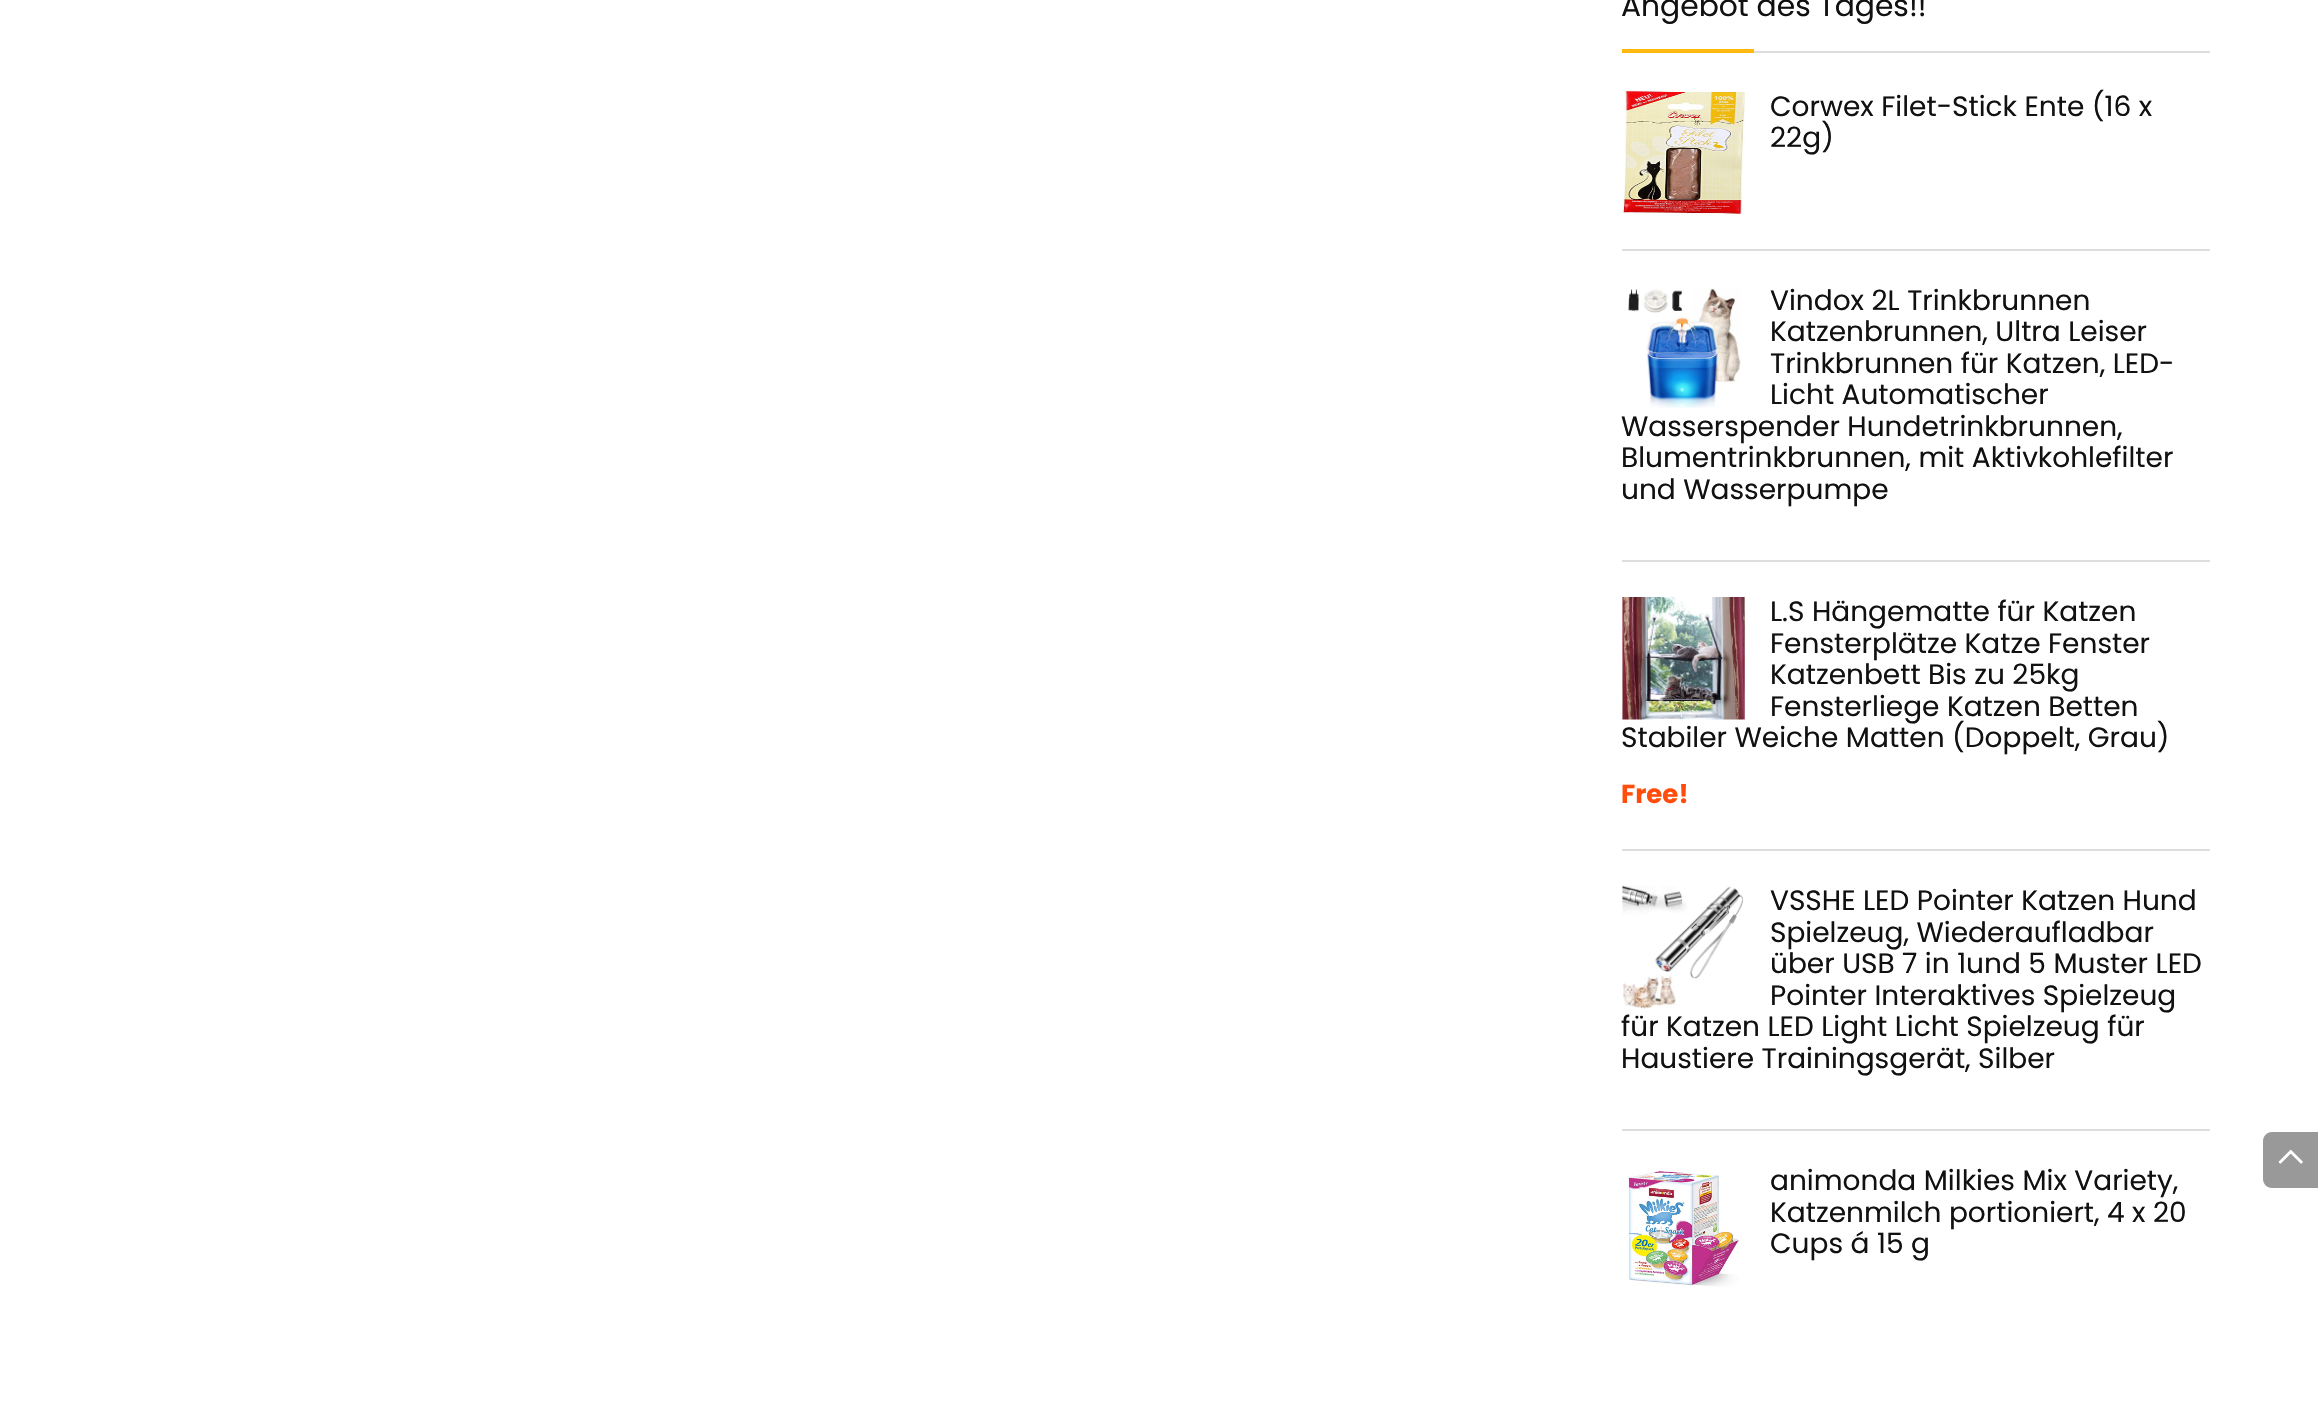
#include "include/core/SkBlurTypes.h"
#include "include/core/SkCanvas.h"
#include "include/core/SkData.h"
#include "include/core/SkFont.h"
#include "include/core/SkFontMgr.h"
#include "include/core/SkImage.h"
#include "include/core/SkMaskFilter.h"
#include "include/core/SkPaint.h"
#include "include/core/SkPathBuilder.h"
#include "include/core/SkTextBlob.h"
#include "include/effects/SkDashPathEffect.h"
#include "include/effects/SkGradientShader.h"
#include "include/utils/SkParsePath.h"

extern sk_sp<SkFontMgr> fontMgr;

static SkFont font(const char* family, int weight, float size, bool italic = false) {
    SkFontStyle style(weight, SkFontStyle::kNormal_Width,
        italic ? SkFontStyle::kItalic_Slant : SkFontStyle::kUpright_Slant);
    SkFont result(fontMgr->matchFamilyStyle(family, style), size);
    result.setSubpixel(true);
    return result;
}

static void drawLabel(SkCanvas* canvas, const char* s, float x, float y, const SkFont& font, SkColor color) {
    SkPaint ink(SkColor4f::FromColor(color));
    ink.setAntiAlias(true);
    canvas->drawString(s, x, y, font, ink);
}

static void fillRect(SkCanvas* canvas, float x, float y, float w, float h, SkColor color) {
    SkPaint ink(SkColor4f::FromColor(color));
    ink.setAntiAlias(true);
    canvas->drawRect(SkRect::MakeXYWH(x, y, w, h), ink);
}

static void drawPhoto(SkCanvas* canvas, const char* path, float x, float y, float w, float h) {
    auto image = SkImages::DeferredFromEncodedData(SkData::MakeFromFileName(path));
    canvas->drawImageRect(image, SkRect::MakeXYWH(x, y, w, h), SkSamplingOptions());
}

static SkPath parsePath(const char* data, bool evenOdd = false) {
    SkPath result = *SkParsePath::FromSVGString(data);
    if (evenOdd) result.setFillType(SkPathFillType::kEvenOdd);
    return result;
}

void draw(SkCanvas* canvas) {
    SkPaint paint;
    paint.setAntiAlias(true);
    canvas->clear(0xFFFFFFFF);
    fillRect(canvas, 1754, 51, 456, 2, 0xFFDDDDDD);
    SkFont font1 = font("Poppins", 400, 29.75f);
    drawLabel(canvas, "Angebot des Tages!!", 1621, 16, font1, 0xFF111111);
    fillRect(canvas, 1622, 49, 132, 4, 0xFFFFB80E);
    fillRect(canvas, 1622, 249, 588, 2, 0xFFDDDDDD);
    drawPhoto(canvas, "assets/img1.png", 1622, 91, 123, 123);
    SkFont font2 = font("Poppins", 400, 28);
    drawLabel(canvas, "Corwex Filet-Stick Ente (16 x", 1770, 116, font2, 0xFF111111);
    drawLabel(canvas, "22g)", 1770, 147, font2, 0xFF111111);
    fillRect(canvas, 1622, 560, 588, 2, 0xFFDDDDDD);
    drawPhoto(canvas, "assets/img2.png", 1628, 288, 113, 120);
    drawLabel(canvas, "Vindox 2L Trinkbrunnen", 1770, 310, font2, 0xFF111111);
    drawLabel(canvas, "Katzenbrunnen, Ultra Leiser", 1770, 341, font2, 0xFF111111);
    drawLabel(canvas, "Trinkbrunnen für Katzen, LED-", 1770, 373, font2, 0xFF111111);
    drawLabel(canvas, "Licht Automatischer", 1770, 404, font2, 0xFF111111);
    drawLabel(canvas, "Wasserspender Hundetrinkbrunnen,", 1621, 436, font2, 0xFF111111);
    drawLabel(canvas, "Blumentrinkbrunnen, mit Aktivkohlefilter", 1621, 467, font2, 0xFF111111);
    drawLabel(canvas, "und Wasserpumpe", 1621, 499, font2, 0xFF111111);
    fillRect(canvas, 1622, 849, 588, 2, 0xFFDDDDDD);
    drawPhoto(canvas, "assets/img3.png", 1622, 597, 123, 123);
    drawLabel(canvas, "L.S Hängematte für Katzen", 1770, 621, font2, 0xFF111111);
    drawLabel(canvas, "Fensterplätze Katze Fenster", 1770, 653, font2, 0xFF111111);
    drawLabel(canvas, "Katzenbett Bis zu 25kg", 1770, 684, font2, 0xFF111111);
    drawLabel(canvas, "Fensterliege Katzen Betten", 1770, 716, font2, 0xFF111111);
    drawLabel(canvas, "Stabiler Weiche Matten (Doppelt, Grau)", 1621, 747, font2, 0xFF111111);
    SkFont font3 = font("Poppins", 700, 26);
    drawLabel(canvas, "Free!", 1621, 803, font3, 0xFFFF4E0C);
    fillRect(canvas, 1622, 1129, 588, 2, 0xFFDDDDDD);
    drawPhoto(canvas, "assets/img4.png", 1622, 885, 121, 124);
    drawLabel(canvas, "VSSHE LED Pointer Katzen Hund", 1770, 910, font2, 0xFF111111);
    drawLabel(canvas, "Spielzeug, Wiederaufladbar", 1770, 942, font2, 0xFF111111);
    drawLabel(canvas, "über USB 7 in 1und 5 Muster LED", 1770, 973, font2, 0xFF111111);
    drawLabel(canvas, "Pointer Interaktives Spielzeug", 1770, 1005, font2, 0xFF111111);
    drawLabel(canvas, "für Katzen LED Light Licht Spielzeug für", 1621, 1036, font2, 0xFF111111);
    drawLabel(canvas, "Haustiere Trainingsgerät, Silber", 1621, 1068, font2, 0xFF111111);
    drawPhoto(canvas, "assets/img5.png", 1627, 1170, 112, 117);
    drawLabel(canvas, "animonda Milkies Mix Variety,", 1770, 1190, font2, 0xFF111111);
    drawLabel(canvas, "Katzenmilch portioniert, 4 x 20", 1770, 1222, font2, 0xFF111111);
    drawLabel(canvas, "Cups á 15 g", 1770, 1253, font2, 0xFF111111);
    paint.setColor(0xFF999999);
    canvas->drawPath(parsePath("M2272 1132H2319V1188H2272C2267 1188 2263 1184 2263 1179V1141C2263 1136 2267 1132 2272 1132Z"), paint);
    drawPhoto(canvas, "assets/img6.png", 2278, 1149, 25, 15);
}
